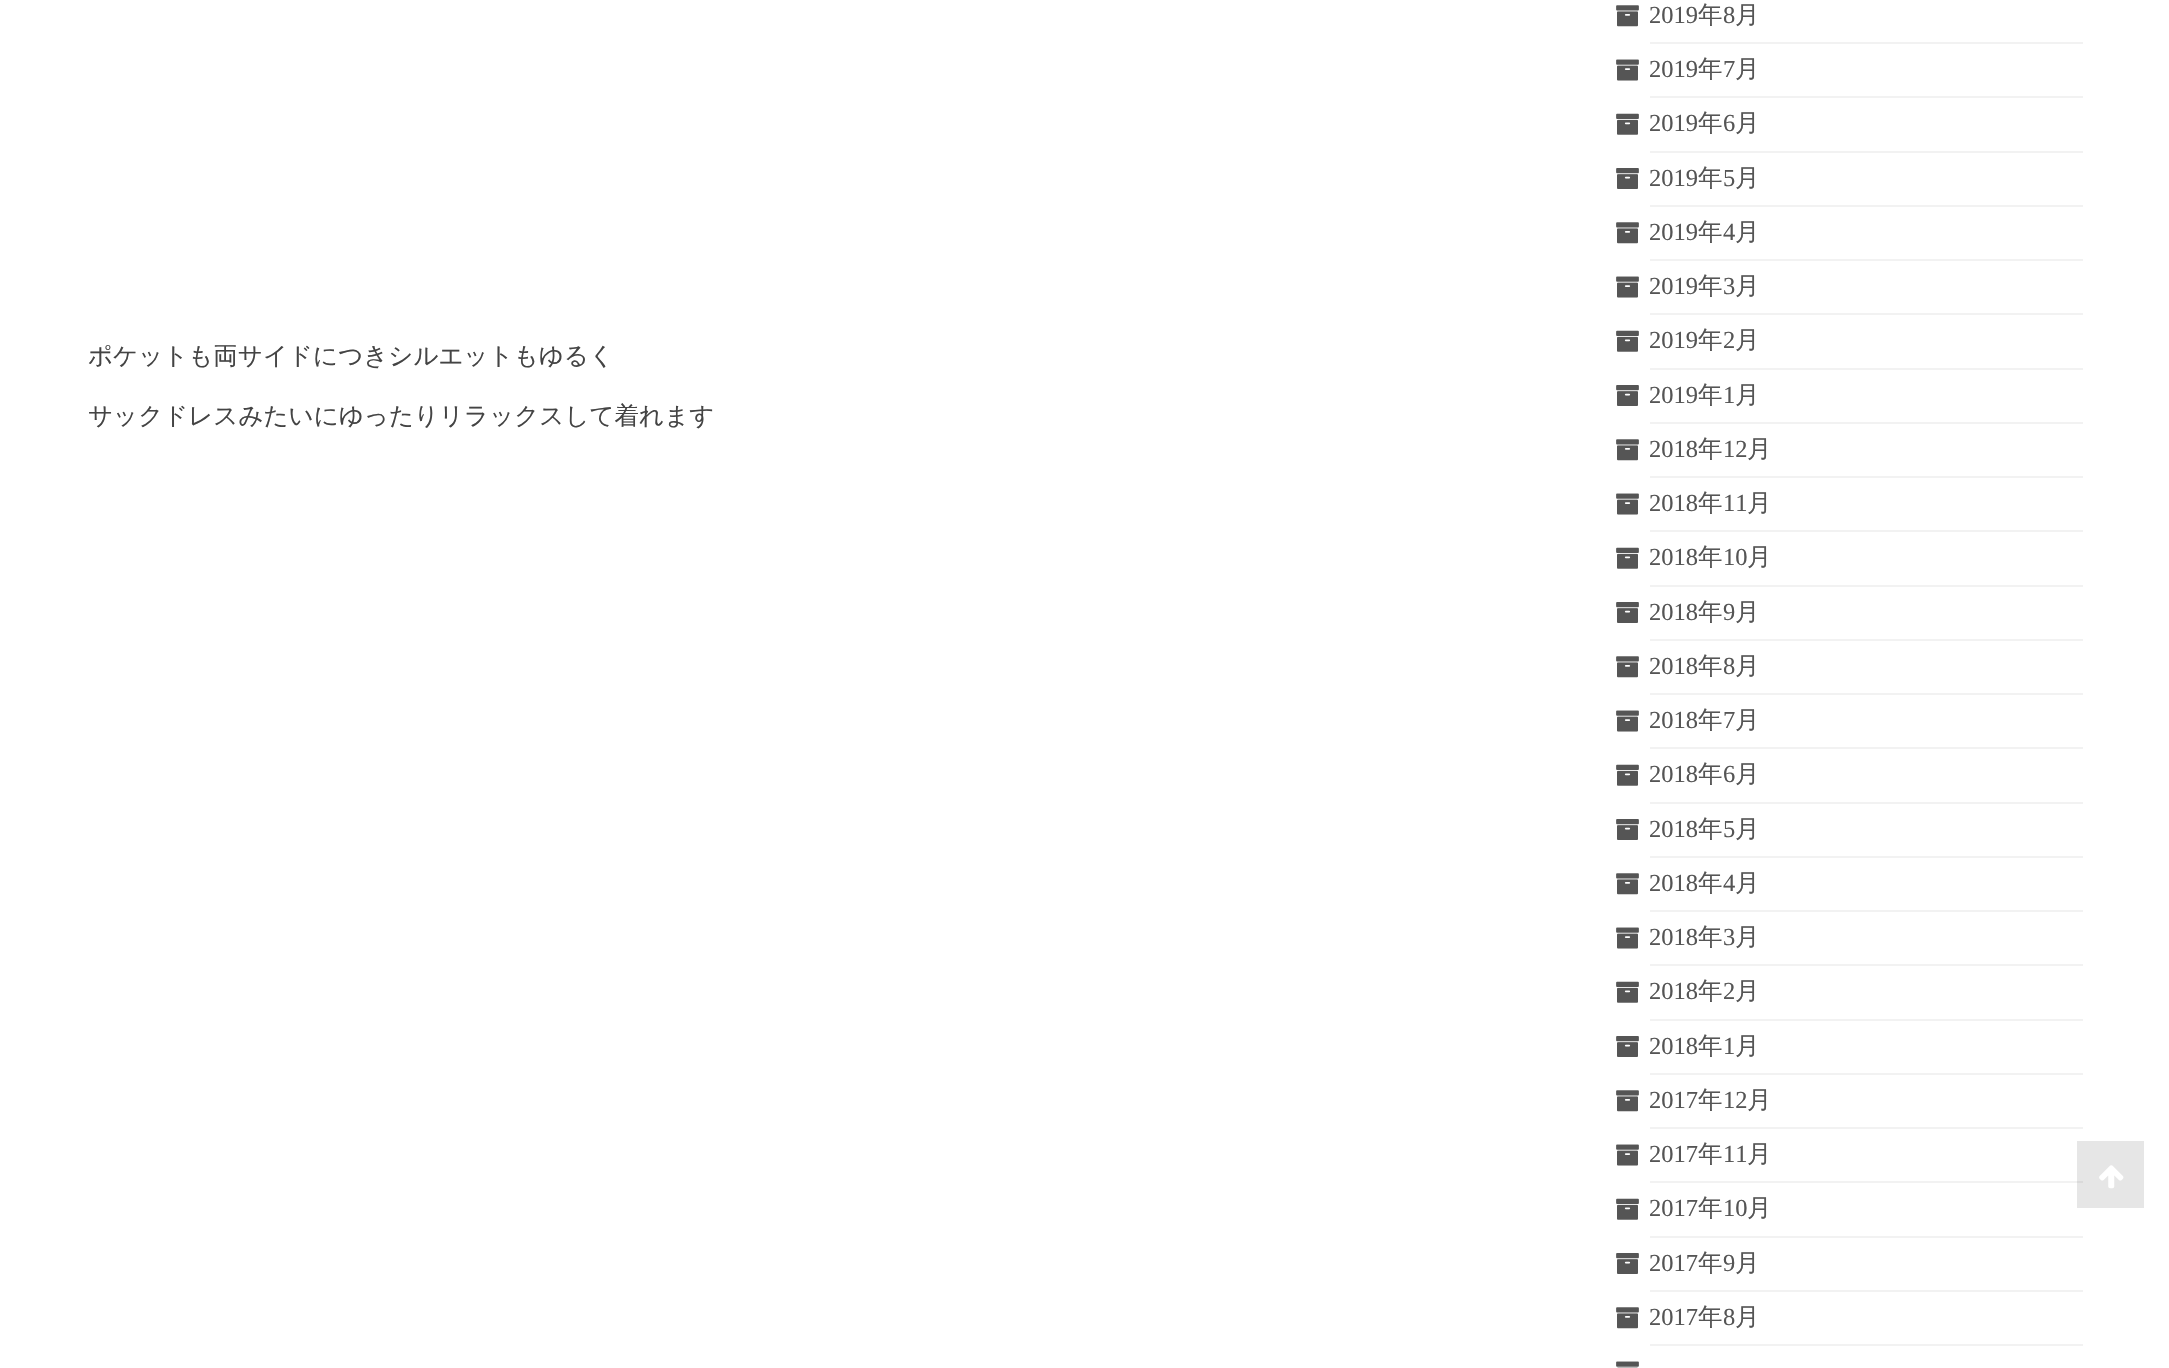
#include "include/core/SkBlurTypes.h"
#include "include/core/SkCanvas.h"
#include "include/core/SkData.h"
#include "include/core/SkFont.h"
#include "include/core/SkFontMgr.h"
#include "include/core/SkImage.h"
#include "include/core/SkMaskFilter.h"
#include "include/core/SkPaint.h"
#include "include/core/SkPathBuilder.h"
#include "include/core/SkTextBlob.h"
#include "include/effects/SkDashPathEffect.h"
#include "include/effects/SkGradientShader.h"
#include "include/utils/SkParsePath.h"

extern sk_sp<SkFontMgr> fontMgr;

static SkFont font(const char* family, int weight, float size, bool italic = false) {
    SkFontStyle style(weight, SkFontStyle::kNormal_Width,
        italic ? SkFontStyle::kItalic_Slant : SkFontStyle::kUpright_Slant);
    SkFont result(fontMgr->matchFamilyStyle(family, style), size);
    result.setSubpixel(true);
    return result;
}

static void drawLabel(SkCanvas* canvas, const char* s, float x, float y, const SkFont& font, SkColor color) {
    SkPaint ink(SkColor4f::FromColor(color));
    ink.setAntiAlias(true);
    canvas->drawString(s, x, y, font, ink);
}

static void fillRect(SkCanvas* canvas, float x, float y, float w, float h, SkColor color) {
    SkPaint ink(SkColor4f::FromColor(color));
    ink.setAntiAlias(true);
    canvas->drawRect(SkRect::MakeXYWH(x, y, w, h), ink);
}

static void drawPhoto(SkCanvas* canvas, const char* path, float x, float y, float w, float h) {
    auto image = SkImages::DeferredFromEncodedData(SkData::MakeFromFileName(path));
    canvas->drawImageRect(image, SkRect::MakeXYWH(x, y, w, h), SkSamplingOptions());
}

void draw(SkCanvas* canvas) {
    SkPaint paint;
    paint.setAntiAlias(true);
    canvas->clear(0xFFFFFFFF);
    fillRect(canvas, 2077, 1141, 67, 67, 0xFFE6E6E6);
    SkFont font1 = font("WenQuanYi Zen Hei", 500, 24.5f);
    drawLabel(canvas, "ポケットも両サイドにつきシルエットもゆるく", 88, 364, font1, 0xFF444444);
    drawLabel(canvas, "サックドレスみたいにゆったりリラックスして着れます", 88, 424, font1, 0xFF444444);
    fillRect(canvas, 1650, 42, 433, 2, 0xFFF2F2F2);
    drawPhoto(canvas, "assets/img1.png", 1616, 5, 23, 22);
    SkFont font2 = font("Liberation Serif", 400, 24.5f);
    drawLabel(canvas, "2019", 1649, 23, font2, 0xFF555555);
    drawLabel(canvas, "年", 1698, 23, font1, 0xFF555555);
    drawLabel(canvas, "8", 1723, 23, font2, 0xFF555555);
    drawLabel(canvas, "月", 1735, 23, font1, 0xFF555555);
    fillRect(canvas, 1650, 96, 433, 2, 0xFFF2F2F2);
    drawPhoto(canvas, "assets/img2.png", 1616, 59, 23, 22);
    drawLabel(canvas, "2019", 1649, 77, font2, 0xFF555555);
    drawLabel(canvas, "年", 1698, 77, font1, 0xFF555555);
    drawLabel(canvas, "7", 1723, 77, font2, 0xFF555555);
    drawLabel(canvas, "月", 1735, 77, font1, 0xFF555555);
    fillRect(canvas, 1650, 151, 433, 2, 0xFFF2F2F2);
    drawPhoto(canvas, "assets/img3.png", 1616, 113, 23, 22);
    drawLabel(canvas, "2019", 1649, 131, font2, 0xFF555555);
    drawLabel(canvas, "年", 1698, 131, font1, 0xFF555555);
    drawLabel(canvas, "6", 1723, 131, font2, 0xFF555555);
    drawLabel(canvas, "月", 1735, 131, font1, 0xFF555555);
    fillRect(canvas, 1650, 205, 433, 2, 0xFFF2F2F2);
    drawPhoto(canvas, "assets/img4.png", 1616, 168, 23, 21);
    drawLabel(canvas, "2019", 1649, 186, font2, 0xFF555555);
    drawLabel(canvas, "年", 1698, 186, font1, 0xFF555555);
    drawLabel(canvas, "5", 1723, 186, font2, 0xFF555555);
    drawLabel(canvas, "月", 1735, 186, font1, 0xFF555555);
    fillRect(canvas, 1650, 259, 433, 2, 0xFFF2F2F2);
    drawPhoto(canvas, "assets/img1.png", 1616, 222, 23, 22);
    drawLabel(canvas, "2019", 1649, 240, font2, 0xFF555555);
    drawLabel(canvas, "年", 1698, 240, font1, 0xFF555555);
    drawLabel(canvas, "4", 1723, 240, font2, 0xFF555555);
    drawLabel(canvas, "月", 1735, 240, font1, 0xFF555555);
    fillRect(canvas, 1650, 313, 433, 2, 0xFFF2F2F2);
    drawPhoto(canvas, "assets/img2.png", 1616, 276, 23, 22);
    drawLabel(canvas, "2019", 1649, 294, font2, 0xFF555555);
    drawLabel(canvas, "年", 1698, 294, font1, 0xFF555555);
    drawLabel(canvas, "3", 1723, 294, font2, 0xFF555555);
    drawLabel(canvas, "月", 1735, 294, font1, 0xFF555555);
    fillRect(canvas, 1650, 368, 433, 2, 0xFFF2F2F2);
    drawPhoto(canvas, "assets/img3.png", 1616, 330, 23, 22);
    drawLabel(canvas, "2019", 1649, 348, font2, 0xFF555555);
    drawLabel(canvas, "年", 1698, 348, font1, 0xFF555555);
    drawLabel(canvas, "2", 1723, 348, font2, 0xFF555555);
    drawLabel(canvas, "月", 1735, 348, font1, 0xFF555555);
    fillRect(canvas, 1650, 422, 433, 2, 0xFFF2F2F2);
    drawPhoto(canvas, "assets/img4.png", 1616, 385, 23, 21);
    drawLabel(canvas, "2019", 1649, 403, font2, 0xFF555555);
    drawLabel(canvas, "年", 1698, 403, font1, 0xFF555555);
    drawLabel(canvas, "1", 1723, 403, font2, 0xFF555555);
    drawLabel(canvas, "月", 1735, 403, font1, 0xFF555555);
    fillRect(canvas, 1650, 476, 433, 2, 0xFFF2F2F2);
    drawPhoto(canvas, "assets/img1.png", 1616, 439, 23, 22);
    drawLabel(canvas, "2018", 1649, 457, font2, 0xFF555555);
    drawLabel(canvas, "年", 1698, 457, font1, 0xFF555555);
    drawLabel(canvas, "12", 1723, 457, font2, 0xFF555555);
    drawLabel(canvas, "月", 1747, 457, font1, 0xFF555555);
    fillRect(canvas, 1650, 530, 433, 2, 0xFFF2F2F2);
    drawPhoto(canvas, "assets/img2.png", 1616, 493, 23, 22);
    drawLabel(canvas, "2018", 1649, 511, font2, 0xFF555555);
    drawLabel(canvas, "年", 1698, 511, font1, 0xFF555555);
    drawLabel(canvas, "11", 1723, 511, font2, 0xFF555555);
    drawLabel(canvas, "月", 1747, 511, font1, 0xFF555555);
    fillRect(canvas, 1650, 585, 433, 2, 0xFFF2F2F2);
    drawPhoto(canvas, "assets/img3.png", 1616, 547, 23, 22);
    drawLabel(canvas, "2018", 1649, 565, font2, 0xFF555555);
    drawLabel(canvas, "年", 1698, 565, font1, 0xFF555555);
    drawLabel(canvas, "10", 1723, 565, font2, 0xFF555555);
    drawLabel(canvas, "月", 1747, 565, font1, 0xFF555555);
    fillRect(canvas, 1650, 639, 433, 2, 0xFFF2F2F2);
    drawPhoto(canvas, "assets/img4.png", 1616, 602, 23, 21);
    drawLabel(canvas, "2018", 1649, 620, font2, 0xFF555555);
    drawLabel(canvas, "年", 1698, 620, font1, 0xFF555555);
    drawLabel(canvas, "9", 1723, 620, font2, 0xFF555555);
    drawLabel(canvas, "月", 1735, 620, font1, 0xFF555555);
    fillRect(canvas, 1650, 693, 433, 2, 0xFFF2F2F2);
    drawPhoto(canvas, "assets/img1.png", 1616, 656, 23, 22);
    drawLabel(canvas, "2018", 1649, 674, font2, 0xFF555555);
    drawLabel(canvas, "年", 1698, 674, font1, 0xFF555555);
    drawLabel(canvas, "8", 1723, 674, font2, 0xFF555555);
    drawLabel(canvas, "月", 1735, 674, font1, 0xFF555555);
    fillRect(canvas, 1650, 747, 433, 2, 0xFFF2F2F2);
    drawPhoto(canvas, "assets/img2.png", 1616, 710, 23, 22);
    drawLabel(canvas, "2018", 1649, 728, font2, 0xFF555555);
    drawLabel(canvas, "年", 1698, 728, font1, 0xFF555555);
    drawLabel(canvas, "7", 1723, 728, font2, 0xFF555555);
    drawLabel(canvas, "月", 1735, 728, font1, 0xFF555555);
    fillRect(canvas, 1650, 802, 433, 2, 0xFFF2F2F2);
    drawPhoto(canvas, "assets/img3.png", 1616, 764, 23, 22);
    drawLabel(canvas, "2018", 1649, 782, font2, 0xFF555555);
    drawLabel(canvas, "年", 1698, 782, font1, 0xFF555555);
    drawLabel(canvas, "6", 1723, 782, font2, 0xFF555555);
    drawLabel(canvas, "月", 1735, 782, font1, 0xFF555555);
    fillRect(canvas, 1650, 856, 433, 2, 0xFFF2F2F2);
    drawPhoto(canvas, "assets/img4.png", 1616, 819, 23, 21);
    drawLabel(canvas, "2018", 1649, 837, font2, 0xFF555555);
    drawLabel(canvas, "年", 1698, 837, font1, 0xFF555555);
    drawLabel(canvas, "5", 1723, 837, font2, 0xFF555555);
    drawLabel(canvas, "月", 1735, 837, font1, 0xFF555555);
    fillRect(canvas, 1650, 910, 433, 2, 0xFFF2F2F2);
    drawPhoto(canvas, "assets/img1.png", 1616, 873, 23, 22);
    drawLabel(canvas, "2018", 1649, 891, font2, 0xFF555555);
    drawLabel(canvas, "年", 1698, 891, font1, 0xFF555555);
    drawLabel(canvas, "4", 1723, 891, font2, 0xFF555555);
    drawLabel(canvas, "月", 1735, 891, font1, 0xFF555555);
    fillRect(canvas, 1650, 964, 433, 2, 0xFFF2F2F2);
    drawPhoto(canvas, "assets/img2.png", 1616, 927, 23, 22);
    drawLabel(canvas, "2018", 1649, 945, font2, 0xFF555555);
    drawLabel(canvas, "年", 1698, 945, font1, 0xFF555555);
    drawLabel(canvas, "3", 1723, 945, font2, 0xFF555555);
    drawLabel(canvas, "月", 1735, 945, font1, 0xFF555555);
    fillRect(canvas, 1650, 1019, 433, 2, 0xFFF2F2F2);
    drawPhoto(canvas, "assets/img3.png", 1616, 981, 23, 22);
    drawLabel(canvas, "2018", 1649, 999, font2, 0xFF555555);
    drawLabel(canvas, "年", 1698, 999, font1, 0xFF555555);
    drawLabel(canvas, "2", 1723, 999, font2, 0xFF555555);
    drawLabel(canvas, "月", 1735, 999, font1, 0xFF555555);
    fillRect(canvas, 1650, 1073, 433, 2, 0xFFF2F2F2);
    drawPhoto(canvas, "assets/img4.png", 1616, 1036, 23, 21);
    drawLabel(canvas, "2018", 1649, 1054, font2, 0xFF555555);
    drawLabel(canvas, "年", 1698, 1054, font1, 0xFF555555);
    drawLabel(canvas, "1", 1723, 1054, font2, 0xFF555555);
    drawLabel(canvas, "月", 1735, 1054, font1, 0xFF555555);
    fillRect(canvas, 1650, 1127, 433, 2, 0xFFF2F2F2);
    drawPhoto(canvas, "assets/img1.png", 1616, 1090, 23, 22);
    drawLabel(canvas, "2017", 1649, 1108, font2, 0xFF555555);
    drawLabel(canvas, "年", 1698, 1108, font1, 0xFF555555);
    drawLabel(canvas, "12", 1723, 1108, font2, 0xFF555555);
    drawLabel(canvas, "月", 1747, 1108, font1, 0xFF555555);
    fillRect(canvas, 1650, 1181, 433, 2, 0xFFF2F2F2);
    fillRect(canvas, 2077, 1181, 6, 2, 0xFFDADADA);
    drawPhoto(canvas, "assets/img2.png", 1616, 1144, 23, 22);
    drawLabel(canvas, "2017", 1649, 1162, font2, 0xFF555555);
    drawLabel(canvas, "年", 1698, 1162, font1, 0xFF555555);
    drawLabel(canvas, "11", 1723, 1162, font2, 0xFF555555);
    drawLabel(canvas, "月", 1747, 1162, font1, 0xFF555555);
    fillRect(canvas, 1650, 1236, 433, 2, 0xFFF2F2F2);
    drawPhoto(canvas, "assets/img3.png", 1616, 1198, 23, 22);
    drawLabel(canvas, "2017", 1649, 1216, font2, 0xFF555555);
    drawLabel(canvas, "年", 1698, 1216, font1, 0xFF555555);
    drawLabel(canvas, "10", 1723, 1216, font2, 0xFF555555);
    drawLabel(canvas, "月", 1747, 1216, font1, 0xFF555555);
    fillRect(canvas, 1650, 1290, 433, 2, 0xFFF2F2F2);
    drawPhoto(canvas, "assets/img4.png", 1616, 1253, 23, 21);
    drawLabel(canvas, "2017", 1649, 1271, font2, 0xFF555555);
    drawLabel(canvas, "年", 1698, 1271, font1, 0xFF555555);
    drawLabel(canvas, "9", 1723, 1271, font2, 0xFF555555);
    drawLabel(canvas, "月", 1735, 1271, font1, 0xFF555555);
    fillRect(canvas, 1650, 1344, 433, 2, 0xFFF2F2F2);
    drawPhoto(canvas, "assets/img1.png", 1616, 1307, 23, 22);
    drawLabel(canvas, "2017", 1649, 1325, font2, 0xFF555555);
    drawLabel(canvas, "年", 1698, 1325, font1, 0xFF555555);
    drawLabel(canvas, "8", 1723, 1325, font2, 0xFF555555);
    drawLabel(canvas, "月", 1735, 1325, font1, 0xFF555555);
    drawPhoto(canvas, "assets/img5.png", 1616, 1361, 23, 7);
    drawPhoto(canvas, "assets/img6.png", 2099, 1165, 25, 24);
}
